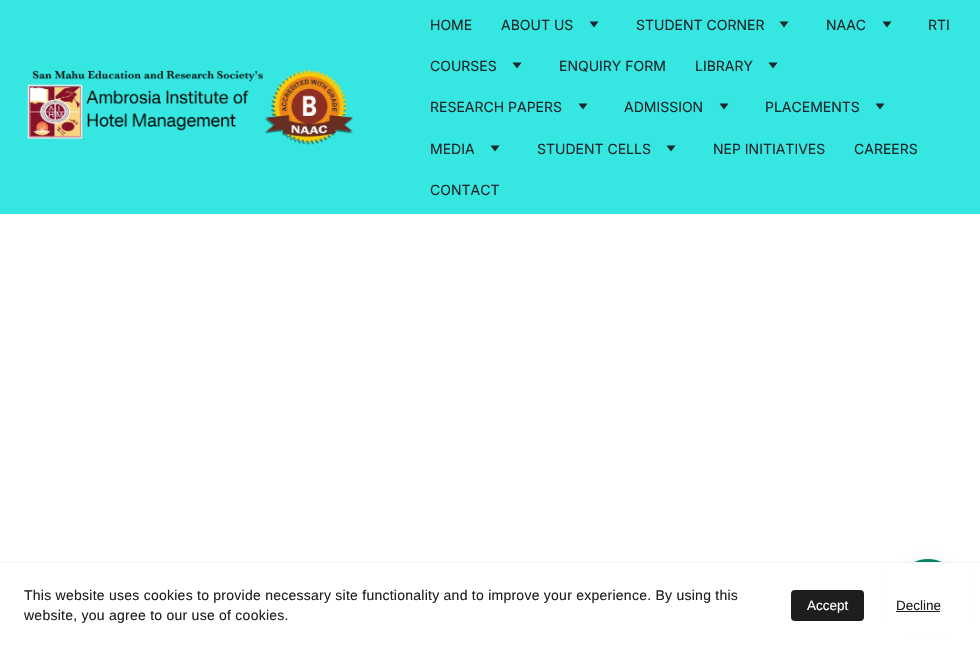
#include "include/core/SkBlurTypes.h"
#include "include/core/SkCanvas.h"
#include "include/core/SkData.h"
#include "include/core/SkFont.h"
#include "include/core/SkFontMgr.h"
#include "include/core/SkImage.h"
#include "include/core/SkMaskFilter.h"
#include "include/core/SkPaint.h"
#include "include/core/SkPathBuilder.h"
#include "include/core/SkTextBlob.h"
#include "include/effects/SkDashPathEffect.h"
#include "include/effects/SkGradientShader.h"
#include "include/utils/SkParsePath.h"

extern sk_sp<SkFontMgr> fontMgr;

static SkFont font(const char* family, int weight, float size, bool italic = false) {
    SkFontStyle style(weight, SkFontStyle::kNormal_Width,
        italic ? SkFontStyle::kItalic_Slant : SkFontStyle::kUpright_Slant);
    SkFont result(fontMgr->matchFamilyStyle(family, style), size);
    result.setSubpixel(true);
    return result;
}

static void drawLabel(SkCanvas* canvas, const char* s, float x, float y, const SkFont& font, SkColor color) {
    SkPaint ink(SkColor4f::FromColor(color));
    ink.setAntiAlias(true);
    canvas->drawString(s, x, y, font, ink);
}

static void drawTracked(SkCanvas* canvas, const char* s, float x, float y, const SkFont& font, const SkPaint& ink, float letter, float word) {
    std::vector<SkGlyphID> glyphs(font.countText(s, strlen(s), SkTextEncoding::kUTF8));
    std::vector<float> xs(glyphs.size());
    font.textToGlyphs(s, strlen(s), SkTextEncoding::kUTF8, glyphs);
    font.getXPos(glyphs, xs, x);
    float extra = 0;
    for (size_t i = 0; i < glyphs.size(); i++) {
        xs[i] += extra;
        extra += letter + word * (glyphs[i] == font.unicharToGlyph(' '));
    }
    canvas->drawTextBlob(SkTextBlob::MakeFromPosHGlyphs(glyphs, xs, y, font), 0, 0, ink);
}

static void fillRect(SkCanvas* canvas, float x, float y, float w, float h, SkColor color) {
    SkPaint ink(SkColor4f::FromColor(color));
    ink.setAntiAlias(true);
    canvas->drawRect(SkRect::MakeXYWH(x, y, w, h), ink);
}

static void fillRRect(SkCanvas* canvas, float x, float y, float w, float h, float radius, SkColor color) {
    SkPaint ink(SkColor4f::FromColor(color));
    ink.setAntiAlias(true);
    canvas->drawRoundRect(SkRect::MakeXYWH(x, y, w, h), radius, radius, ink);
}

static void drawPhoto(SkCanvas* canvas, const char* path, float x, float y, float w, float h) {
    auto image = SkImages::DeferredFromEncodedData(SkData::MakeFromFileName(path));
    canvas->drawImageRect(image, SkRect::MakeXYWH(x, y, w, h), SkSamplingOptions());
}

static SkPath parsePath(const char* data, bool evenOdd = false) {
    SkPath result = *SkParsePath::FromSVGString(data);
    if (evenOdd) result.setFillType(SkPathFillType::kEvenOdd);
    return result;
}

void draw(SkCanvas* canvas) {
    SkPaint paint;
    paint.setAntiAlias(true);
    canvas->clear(0xFFFFFFFF);
    fillRect(canvas, 0, 0, 980, 214, 0xFF35E6E1);
    drawPhoto(canvas, "assets/img1.png", 27, 69, 327, 76);
    SkFont font1 = font("Inter", 400, 14);
    drawLabel(canvas, "HOME", 430, 30, font1, 0xFF1D262A);
    drawLabel(canvas, "ABOUT US", 501, 30, font1, 0xFF1D262A);
    paint.setColor(0xFF1D262A);
    canvas->drawPath(parsePath("M594 27.5L589.5 21.5H598.5Z"), paint);
    drawLabel(canvas, "STUDENT CORNER", 636, 30, font1, 0xFF1D262A);
    canvas->drawPath(parsePath("M784 27.5L779.5 21.5H788.5Z"), paint);
    drawLabel(canvas, "NAAC", 826, 30, font1, 0xFF1D262A);
    canvas->drawPath(parsePath("M887 27.5L882.5 21.5H891.5Z"), paint);
    drawLabel(canvas, "RTI", 928, 30, font1, 0xFF1D262A);
    drawLabel(canvas, "COURSES", 430, 71, font1, 0xFF1D262A);
    canvas->drawPath(parsePath("M517 68.5L512.5 62.5H521.5Z"), paint);
    drawLabel(canvas, "ENQUIRY FORM", 559, 71, font1, 0xFF1D262A);
    drawLabel(canvas, "LIBRARY", 695, 71, font1, 0xFF1D262A);
    canvas->drawPath(parsePath("M773 68.5L768.5 62.5H777.5Z"), paint);
    drawLabel(canvas, "RESEARCH PAPERS", 430, 112, font1, 0xFF1D262A);
    canvas->drawPath(parsePath("M583 109.5L578.5 103.5H587.5Z"), paint);
    drawLabel(canvas, "ADMISSION", 624, 112, font1, 0xFF1D262A);
    canvas->drawPath(parsePath("M724 109.5L719.5 103.5H728.5Z"), paint);
    drawLabel(canvas, "PLACEMENTS", 765, 112, font1, 0xFF1D262A);
    canvas->drawPath(parsePath("M880 109.5L875.5 103.5H884.5Z"), paint);
    drawLabel(canvas, "MEDIA", 430, 154, font1, 0xFF1D262A);
    canvas->drawPath(parsePath("M495 151.5L490.5 145.5H499.5Z"), paint);
    drawLabel(canvas, "STUDENT CELLS", 537, 154, font1, 0xFF1D262A);
    canvas->drawPath(parsePath("M671 151.5L666.5 145.5H675.5Z"), paint);
    drawLabel(canvas, "NEP INITIATIVES", 713, 154, font1, 0xFF1D262A);
    drawLabel(canvas, "CAREERS", 854, 154, font1, 0xFF1D262A);
    drawLabel(canvas, "CONTACT", 430, 195, font1, 0xFF1D262A);
    paint.setColor(0x26000000);
    paint.setMaskFilter(SkMaskFilter::MakeBlur(kNormal_SkBlurStyle, 6));
    canvas->drawRoundRect(SkRect::MakeXYWH(896, 563, 64, 64), 32, 32, paint);
    paint.setMaskFilter(nullptr);
    fillRect(canvas, 888, 563, 80, 72, 0xFFFFFFFF);
    fillRect(canvas, 0, 562, 980, 1, 0xFFF2F3F6);
    SkFont font2 = font("Liberation Sans", 400, 14);
    paint.setColor(0xFF1D1E20);
    drawTracked(canvas, "This website uses cookies to provide necessary site functionality and to improve your experience. By using this", 24, 600, font2, paint, 0.25f, 0);
    drawTracked(canvas, "website, you agree to our use of cookies.", 24, 620, font2, paint, 0.25f, 0);
    fillRRect(canvas, 791, 590, 73, 31, 4, 0xFF1D1E20);
    SkFont font3 = font("Liberation Sans", 400, 13.5f);
    drawLabel(canvas, "Accept", 807, 610, font3, 0xFFFFFFFF);
    drawLabel(canvas, "Decline", 896, 610, font3, 0xFF1D1E20);
    fillRect(canvas, 896, 611, 44, 1, 0xFF1D1E20);
    drawPhoto(canvas, "assets/img2.png", 914, 559, 28, 3);
}
